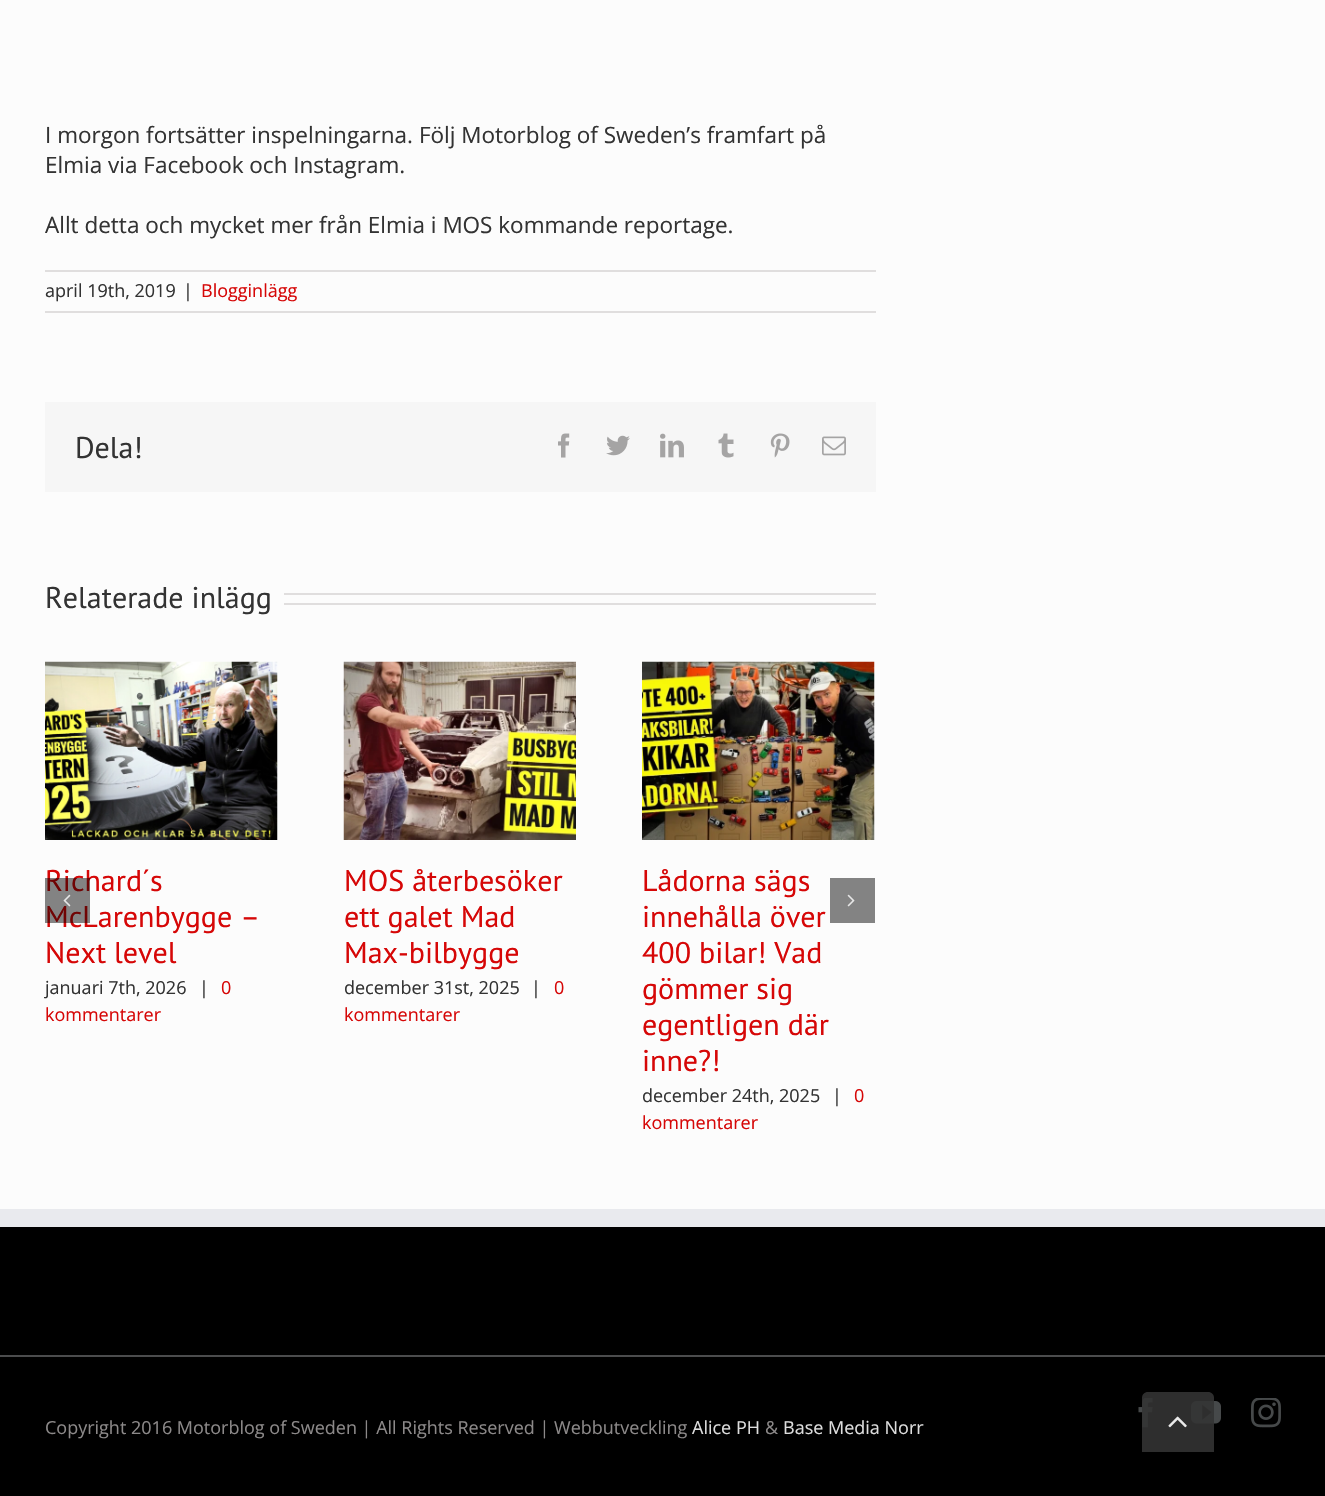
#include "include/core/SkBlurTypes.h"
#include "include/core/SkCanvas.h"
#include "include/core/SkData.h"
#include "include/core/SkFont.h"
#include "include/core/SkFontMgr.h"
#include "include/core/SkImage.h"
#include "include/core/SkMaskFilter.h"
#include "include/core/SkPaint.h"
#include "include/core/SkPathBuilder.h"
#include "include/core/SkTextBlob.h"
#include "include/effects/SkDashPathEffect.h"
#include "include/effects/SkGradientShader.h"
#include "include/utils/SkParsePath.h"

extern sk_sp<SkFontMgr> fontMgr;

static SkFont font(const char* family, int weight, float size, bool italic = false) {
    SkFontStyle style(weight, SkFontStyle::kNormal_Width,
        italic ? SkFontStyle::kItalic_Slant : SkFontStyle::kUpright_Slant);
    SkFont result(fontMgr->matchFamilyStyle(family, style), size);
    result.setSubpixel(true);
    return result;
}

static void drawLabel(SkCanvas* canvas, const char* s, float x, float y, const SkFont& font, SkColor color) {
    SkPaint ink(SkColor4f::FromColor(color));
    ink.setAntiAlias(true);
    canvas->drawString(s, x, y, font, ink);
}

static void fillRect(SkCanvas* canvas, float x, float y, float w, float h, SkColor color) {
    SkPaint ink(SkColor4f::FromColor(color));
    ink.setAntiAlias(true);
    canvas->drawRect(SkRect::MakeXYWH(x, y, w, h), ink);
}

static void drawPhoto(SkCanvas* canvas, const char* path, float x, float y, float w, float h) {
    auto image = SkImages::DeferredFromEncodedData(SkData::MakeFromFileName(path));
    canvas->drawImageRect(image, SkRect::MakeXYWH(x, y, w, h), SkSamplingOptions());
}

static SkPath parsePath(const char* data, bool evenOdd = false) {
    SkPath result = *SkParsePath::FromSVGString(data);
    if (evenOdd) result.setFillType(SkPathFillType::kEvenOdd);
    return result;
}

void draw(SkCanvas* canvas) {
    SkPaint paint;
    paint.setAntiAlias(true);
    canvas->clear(0xFF000000);
    fillRect(canvas, 0, 0, 1325, 1209, 0xFFFCFCFC);
    SkFont font1 = font("Open Sans", 400, 22.5f);
    drawLabel(canvas, "I morgon fortsätter inspelningarna. Följ Motorblog of Sweden’s framfart på", 45, 143, font1, 0xFF333333);
    drawLabel(canvas, "Elmia via Facebook och Instagram.", 45, 173, font1, 0xFF333333);
    drawLabel(canvas, "Allt detta och mycket mer från Elmia i MOS kommande reportage.", 45, 233, font1, 0xFF333333);
    fillRect(canvas, 45, 270, 831, 2, 0xFFE0DEDE);
    fillRect(canvas, 45, 311, 831, 2, 0xFFE0DEDE);
    SkFont font2 = font("Open Sans", 400, 18);
    drawLabel(canvas, "april 19th, 2019", 45, 297, font2, 0xFF333333);
    drawLabel(canvas, "|", 183, 297, font2, 0xFF333333);
    drawLabel(canvas, "Blogginlägg", 201, 297, font2, 0xFFD60707);
    fillRect(canvas, 45, 402, 831, 90, 0xFFF6F6F6);
    SkFont font3 = font("PT Sans", 400, 30);
    drawLabel(canvas, "Dela!", 75, 458, font3, 0xFF333333);
    drawPhoto(canvas, "assets/img1.png", 558, 433, 12, 25);
    drawPhoto(canvas, "assets/img2.png", 606, 435, 24, 21);
    drawPhoto(canvas, "assets/img3.png", 660, 433, 24, 25);
    drawPhoto(canvas, "assets/img4.png", 718, 433, 16, 25);
    drawPhoto(canvas, "assets/img5.png", 770, 433, 20, 25);
    drawPhoto(canvas, "assets/img6.png", 822, 436, 24, 20);
    drawLabel(canvas, "Relaterade inlägg", 45, 608, font3, 0xFF333333);
    fillRect(canvas, 284, 593, 592, 2, 0xFFE0DEDE);
    fillRect(canvas, 284, 603, 592, 2, 0xFFE0DEDE);
    drawPhoto(canvas, "assets/img7.png", 45, 661, 233, 179);
    drawLabel(canvas, "Richard´s", 45, 891, font3, 0xFFD60707);
    drawLabel(canvas, "McLarenbygge –", 45, 927, font3, 0xFFD60707);
    drawLabel(canvas, "Next level", 45, 963, font3, 0xFFD60707);
    drawLabel(canvas, "januari 7th, 2026", 45, 994, font2, 0xFF333333);
    drawLabel(canvas, "|", 199, 994, font2, 0xFF333333);
    drawLabel(canvas, "0", 221, 994, font2, 0xFFD60707);
    drawLabel(canvas, "kommentarer", 45, 1021, font2, 0xFFD60707);
    drawPhoto(canvas, "assets/img8.png", 343, 661, 233, 179);
    drawLabel(canvas, "MOS återbesöker", 344, 891, font3, 0xFFD60707);
    drawLabel(canvas, "ett galet Mad", 344, 927, font3, 0xFFD60707);
    drawLabel(canvas, "Max-bilbygge", 344, 963, font3, 0xFFD60707);
    drawLabel(canvas, "december 31st, 2025", 344, 994, font2, 0xFF333333);
    drawLabel(canvas, "|", 531, 994, font2, 0xFF333333);
    drawLabel(canvas, "0", 554, 994, font2, 0xFFD60707);
    drawLabel(canvas, "kommentarer", 344, 1021, font2, 0xFFD60707);
    drawPhoto(canvas, "assets/img9.png", 642, 661, 233, 179);
    drawLabel(canvas, "Lådorna sägs", 642, 891, font3, 0xFFD60707);
    drawLabel(canvas, "innehålla över", 642, 927, font3, 0xFFD60707);
    drawLabel(canvas, "400 bilar! Vad", 642, 963, font3, 0xFFD60707);
    drawLabel(canvas, "gömmer sig", 642, 999, font3, 0xFFD60707);
    drawLabel(canvas, "egentligen där", 642, 1035, font3, 0xFFD60707);
    drawLabel(canvas, "inne?!", 642, 1071, font3, 0xFFD60707);
    drawLabel(canvas, "december 24th, 2025", 642, 1102, font2, 0xFF333333);
    drawLabel(canvas, "|", 832, 1102, font2, 0xFF333333);
    drawLabel(canvas, "0", 854, 1102, font2, 0xFFD60707);
    drawLabel(canvas, "kommentarer", 642, 1129, font2, 0xFFD60707);
    fillRect(canvas, 45, 878, 45, 45, 0x7A000000);
    drawPhoto(canvas, "assets/img10.png", 63, 894, 8, 13);
    fillRect(canvas, 830, 878, 45, 45, 0xFF838383);
    drawPhoto(canvas, "assets/img11.png", 847, 894, 8, 13);
    fillRect(canvas, 0, 1209, 1325, 18, 0xFFE9EAEE);
    fillRect(canvas, 0, 1355, 1325, 2, 0xFF4B4C4D);
    drawLabel(canvas, "Copyright 2016 Motorblog of Sweden | All Rights Reserved | Webbutveckling", 45, 1434, font2, 0xFF8C8989);
    drawLabel(canvas, "Alice PH", 692, 1434, font2, 0xFFDDDDDD);
    drawLabel(canvas, "&", 765, 1434, font2, 0xFF8C8989);
    drawLabel(canvas, "Base Media Norr", 783, 1434, font2, 0xFFDDDDDD);
    drawPhoto(canvas, "assets/img12.png", 1138, 1398, 15, 30);
    drawPhoto(canvas, "assets/img13.png", 1191, 1401, 30, 23);
    drawPhoto(canvas, "assets/img14.png", 1251, 1398, 30, 30);
    paint.setColor(0xE6333333);
    canvas->drawPath(parsePath("M1148 1392H1208C1211.5 1392 1214 1394.5 1214 1398V1452H1142V1398C1142 1394.5 1144.5 1392 1148 1392Z"), paint);
    drawPhoto(canvas, "assets/img15.png", 1168, 1416, 19, 12);
}
